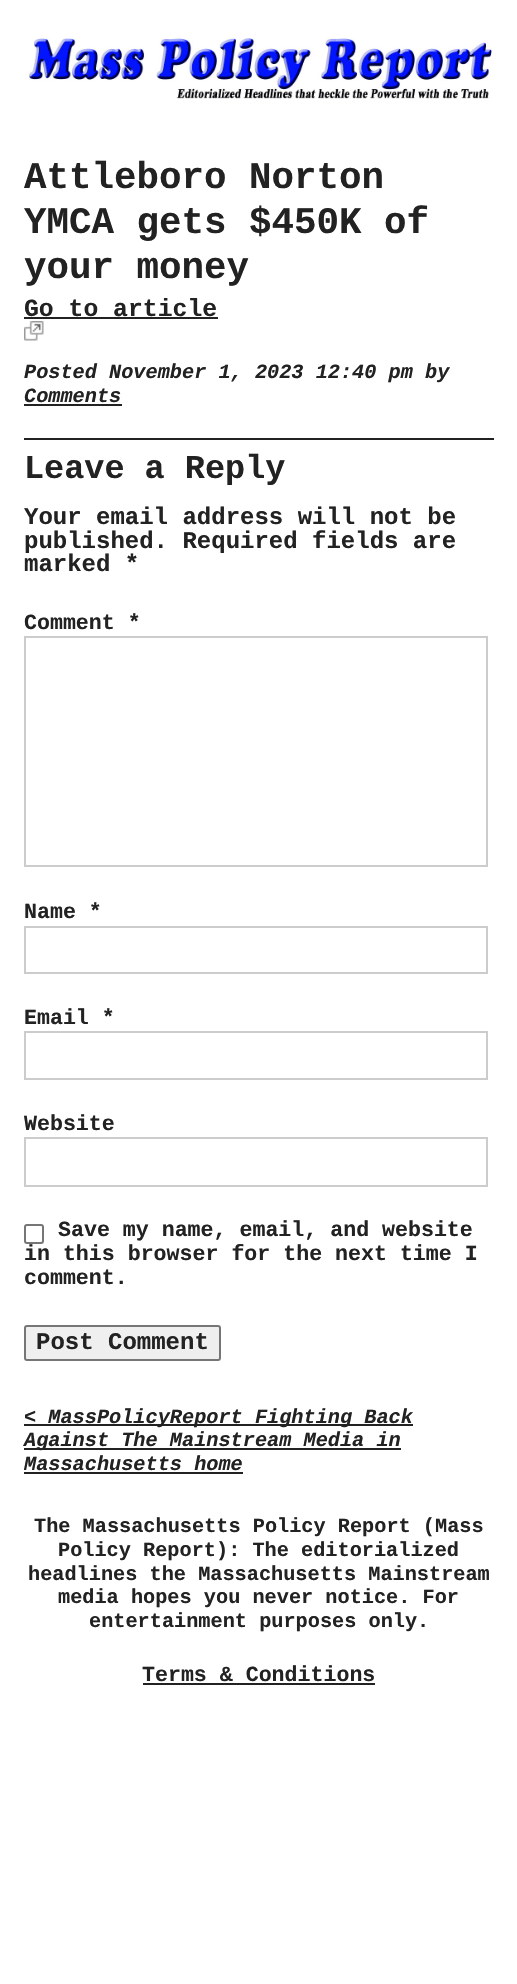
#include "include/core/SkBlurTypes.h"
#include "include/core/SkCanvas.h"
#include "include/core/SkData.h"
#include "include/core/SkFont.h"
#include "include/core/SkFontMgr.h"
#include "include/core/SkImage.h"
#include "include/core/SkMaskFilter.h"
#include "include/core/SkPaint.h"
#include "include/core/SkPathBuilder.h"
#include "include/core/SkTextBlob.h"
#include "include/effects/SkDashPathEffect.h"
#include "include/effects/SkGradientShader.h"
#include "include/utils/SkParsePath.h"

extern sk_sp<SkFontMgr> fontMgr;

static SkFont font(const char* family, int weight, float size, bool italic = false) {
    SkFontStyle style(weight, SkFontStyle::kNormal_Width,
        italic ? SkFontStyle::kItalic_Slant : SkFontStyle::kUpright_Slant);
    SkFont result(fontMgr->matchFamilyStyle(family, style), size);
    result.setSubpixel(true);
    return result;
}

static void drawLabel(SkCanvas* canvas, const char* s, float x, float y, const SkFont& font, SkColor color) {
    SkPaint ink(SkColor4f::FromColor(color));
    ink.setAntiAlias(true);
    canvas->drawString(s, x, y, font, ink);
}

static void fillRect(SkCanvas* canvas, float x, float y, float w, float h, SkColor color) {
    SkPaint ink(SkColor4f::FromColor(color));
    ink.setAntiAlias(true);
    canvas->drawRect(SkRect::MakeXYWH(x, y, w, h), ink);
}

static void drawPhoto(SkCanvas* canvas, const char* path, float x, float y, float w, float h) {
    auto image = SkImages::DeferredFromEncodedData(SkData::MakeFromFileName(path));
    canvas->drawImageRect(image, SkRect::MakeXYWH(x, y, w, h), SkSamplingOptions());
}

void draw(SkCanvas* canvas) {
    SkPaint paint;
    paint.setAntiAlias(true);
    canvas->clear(0xFFFFFFFF);
    drawPhoto(canvas, "assets/img1.png", 28, 38, 464, 61);
    SkFont font1 = font("Liberation Mono", 700, 37.5f);
    drawLabel(canvas, "Attleboro Norton", 24, 188, font1, 0xFF222222);
    drawLabel(canvas, "YMCA gets $450K of", 24, 233, font1, 0xFF222222);
    drawLabel(canvas, "your money", 24, 278, font1, 0xFF222222);
    SkFont font2 = font("Liberation Mono", 700, 24.75f);
    drawLabel(canvas, "Go to article", 24, 316, font2, 0xFF222222);
    fillRect(canvas, 24, 317, 194, 2, 0xFF222222);
    drawPhoto(canvas, "assets/img2.png", 24, 321, 20, 20);
    SkFont font3 = font("Liberation Mono", 700, 20.25f, true);
    drawLabel(canvas, "Posted November 1, 2023 12:40 pm by", 24, 378, font3, 0xFF222222);
    drawLabel(canvas, "Comments", 24, 402, font3, 0xFF222222);
    fillRect(canvas, 24, 404, 98, 2, 0xFF222222);
    fillRect(canvas, 24, 438, 470, 2, 0xFF222222);
    SkFont font4 = font("Liberation Mono", 700, 33.5f);
    drawLabel(canvas, "Leave a Reply", 24, 478, font4, 0xFF222222);
    SkFont font5 = font("Liberation Mono", 700, 24);
    drawLabel(canvas, "Your email address will not be", 24, 524, font5, 0xFF222222);
    drawLabel(canvas, "published. Required fields are", 24, 548, font5, 0xFF222222);
    drawLabel(canvas, "marked *", 24, 571, font5, 0xFF222222);
    SkFont font6 = font("Liberation Mono", 700, 21.6f);
    drawLabel(canvas, "Comment *", 24, 629, font6, 0xFF222222);
    paint.setStroke(true);
    paint.setStrokeWidth(2);
    paint.setColor(0xFFCCCCCC);
    canvas->drawRect(SkRect::MakeXYWH(25, 637, 462, 229), paint);
    drawLabel(canvas, "Name *", 24, 918, font6, 0xFF222222);
    canvas->drawRect(SkRect::MakeXYWH(25, 927, 462, 46), paint);
    drawLabel(canvas, "Email *", 24, 1024, font6, 0xFF222222);
    canvas->drawRect(SkRect::MakeXYWH(25, 1032, 462, 47), paint);
    drawLabel(canvas, "Website", 24, 1130, font6, 0xFF222222);
    canvas->drawRect(SkRect::MakeXYWH(25, 1138, 462, 48), paint);
    paint.setColor(0xFF767676);
    canvas->drawRoundRect(SkRect::MakeXYWH(25, 1225, 18, 18), 2, 2, paint);
    drawLabel(canvas, "Save my name, email, and website", 58, 1236, font6, 0xFF222222);
    drawLabel(canvas, "in this browser for the next time I", 24, 1260, font6, 0xFF222222);
    drawLabel(canvas, "comment.", 24, 1284, font6, 0xFF222222);
    paint.setStroke(false);
    paint.setColor(0xFFEFEFEF);
    canvas->drawRoundRect(SkRect::MakeXYWH(25, 1326, 195, 34), 2, 2, paint);
    paint.setStroke(true);
    paint.setColor(0xFF767676);
    canvas->drawRoundRect(SkRect::MakeXYWH(25, 1326, 195, 34), 2, 2, paint);
    drawLabel(canvas, "Post Comment", 36, 1349, font5, 0xFF222222);
    fillRect(canvas, 24, 1424, 389, 2, 0xFF222222);
    drawLabel(canvas, "< MassPolicyReport Fighting Back", 24, 1423, font3, 0xFF222222);
    fillRect(canvas, 24, 1448, 377, 2, 0xFF222222);
    drawLabel(canvas, "Against The Mainstream Media in", 24, 1446, font3, 0xFF222222);
    drawLabel(canvas, "Massachusetts home", 24, 1470, font3, 0xFF222222);
    fillRect(canvas, 24, 1472, 219, 2, 0xFF222222);
    SkFont font7 = font("Liberation Mono", 700, 20.25f);
    drawLabel(canvas, "The Massachusetts Policy Report (Mass", 34, 1532, font7, 0xFF222222);
    drawLabel(canvas, "Policy Report): The editorialized", 58, 1556, font7, 0xFF222222);
    drawLabel(canvas, "headlines the Massachusetts Mainstream", 28, 1580, font7, 0xFF222222);
    drawLabel(canvas, "media hopes you never notice. For", 58, 1603, font7, 0xFF222222);
    drawLabel(canvas, "entertainment purposes only.", 89, 1627, font7, 0xFF222222);
    drawLabel(canvas, "Terms & Conditions", 142, 1681, font6, 0xFF222222);
    fillRect(canvas, 143, 1683, 232, 2, 0xFF222222);
}
